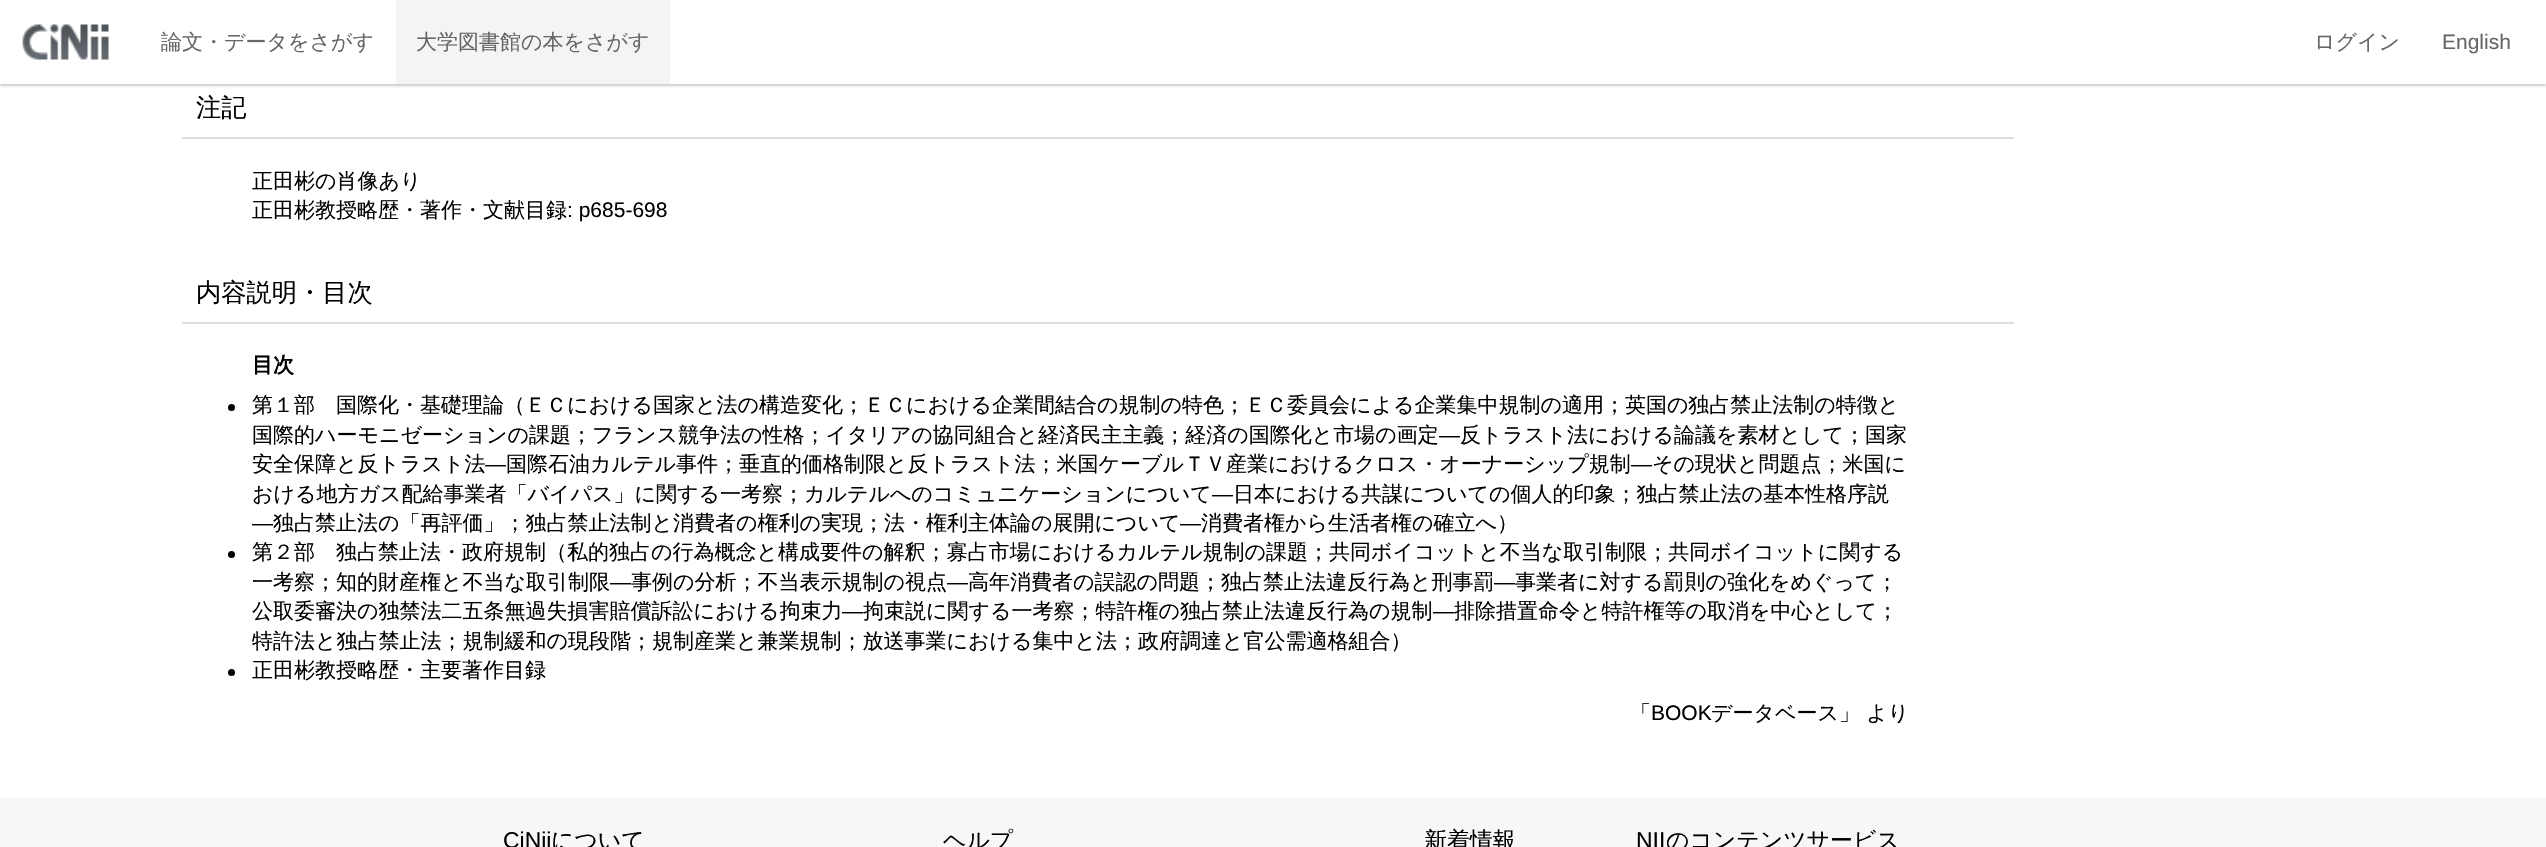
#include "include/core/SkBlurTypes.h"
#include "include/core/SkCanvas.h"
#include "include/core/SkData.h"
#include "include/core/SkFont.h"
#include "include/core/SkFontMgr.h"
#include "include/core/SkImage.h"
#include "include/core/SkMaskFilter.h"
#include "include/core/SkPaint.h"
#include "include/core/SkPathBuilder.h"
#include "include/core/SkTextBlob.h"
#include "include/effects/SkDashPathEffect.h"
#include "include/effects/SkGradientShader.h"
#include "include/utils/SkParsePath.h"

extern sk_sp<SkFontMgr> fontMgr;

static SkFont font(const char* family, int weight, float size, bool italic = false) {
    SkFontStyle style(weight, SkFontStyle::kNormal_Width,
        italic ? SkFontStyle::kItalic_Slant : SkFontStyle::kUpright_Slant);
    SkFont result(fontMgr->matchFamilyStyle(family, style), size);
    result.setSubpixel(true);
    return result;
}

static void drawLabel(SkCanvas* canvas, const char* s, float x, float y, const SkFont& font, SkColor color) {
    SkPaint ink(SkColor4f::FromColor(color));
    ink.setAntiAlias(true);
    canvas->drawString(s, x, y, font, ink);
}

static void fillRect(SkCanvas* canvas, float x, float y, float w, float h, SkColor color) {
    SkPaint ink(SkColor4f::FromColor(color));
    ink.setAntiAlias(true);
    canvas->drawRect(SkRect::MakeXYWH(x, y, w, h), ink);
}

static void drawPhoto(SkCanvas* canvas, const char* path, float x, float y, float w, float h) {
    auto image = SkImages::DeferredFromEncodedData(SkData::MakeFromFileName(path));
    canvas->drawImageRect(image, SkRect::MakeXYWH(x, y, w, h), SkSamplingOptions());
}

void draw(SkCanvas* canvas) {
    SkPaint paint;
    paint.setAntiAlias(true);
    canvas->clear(0xFFFFFFFF);
    paint.setColor(0x33000000);
    paint.setMaskFilter(SkMaskFilter::MakeBlur(kNormal_SkBlurStyle, 1));
    canvas->drawRect(SkRect::MakeXYWH(0, 2, 2546, 84), paint);
    paint.setMaskFilter(nullptr);
    fillRect(canvas, 0, 0, 2546, 84, 0xFFFFFFFF);
    drawPhoto(canvas, "assets/img1.png", 22, 24, 87, 36);
    SkFont font1 = font("WenQuanYi Zen Hei", 500, 21);
    drawLabel(canvas, "論文・データをさがす", 161, 49, font1, 0xFF666666);
    fillRect(canvas, 396, 0, 274, 84, 0xFFF4F4F4);
    drawLabel(canvas, "大学図書館の本をさがす", 416, 49, font1, 0xFF666666);
    drawLabel(canvas, "ログイン", 2314, 49, font1, 0xFF666666);
    SkFont font2 = font("Liberation Sans", 400, 21);
    drawLabel(canvas, "English", 2442, 49, font2, 0xFF666666);
    fillRect(canvas, 182, 137, 1832, 2, 0xFFDDDDDD);
    SkFont font3 = font("WenQuanYi Zen Hei", 500, 25.25f);
    drawLabel(canvas, "注記", 196, 116, font3, 0xFF000000);
    drawLabel(canvas, "正田彬の肖像あり", 252, 188, font1, 0xFF000000);
    drawLabel(canvas, "正田彬教授略歴・著作・文献目録", 252, 217, font1, 0xFF000000);
    drawLabel(canvas, ": p685-698", 567, 217, font2, 0xFF000000);
    fillRect(canvas, 182, 322, 1832, 2, 0xFFDDDDDD);
    drawLabel(canvas, "内容説明・目次", 196, 301, font3, 0xFF000000);
    SkFont font4 = font("WenQuanYi Zen Hei", 700, 21);
    drawLabel(canvas, "目次", 252, 372, font4, 0xFF000000);
    paint.setColor(0xFF000000);
    canvas->drawCircle(231.5f, 407.5f, 3.5f, paint);
    drawLabel(canvas, "第１部　国際化・基礎理論（ＥＣにおける国家と法の構造変化；ＥＣにおける企業間結合の規制の特色；ＥＣ委員会による企業集中規制の適用；英国の独占禁止法制の特徴と", 252, 412, font1, 0xFF000000);
    drawLabel(canvas, "国際的ハーモニゼーションの課題；フランス競争法の性格；イタリアの協同組合と経済民主主義；経済の国際化と市場の画定", 252, 442, font1, 0xFF000000);
    drawLabel(canvas, "—", 1439, 442, font2, 0xFF000000);
    drawLabel(canvas, "反トラスト法における論議を素材として；国家", 1460, 442, font1, 0xFF000000);
    drawLabel(canvas, "安全保障と反トラスト法", 252, 471, font1, 0xFF000000);
    drawLabel(canvas, "—", 485, 471, font2, 0xFF000000);
    drawLabel(canvas, "国際石油カルテル事件；垂直的価格制限と反トラスト法；米国ケーブルＴＶ産業におけるクロス・オーナーシップ規制", 506, 471, font1, 0xFF000000);
    drawLabel(canvas, "—", 1631, 471, font2, 0xFF000000);
    drawLabel(canvas, "その現状と問題点；米国に", 1652, 471, font1, 0xFF000000);
    drawLabel(canvas, "おける地方ガス配給事業者「バイパス」に関する一考察；カルテルへのコミュニケーションについて", 252, 501, font1, 0xFF000000);
    drawLabel(canvas, "—", 1212, 501, font2, 0xFF000000);
    drawLabel(canvas, "日本における共謀についての個人的印象；独占禁止法の基本性格序説", 1233, 501, font1, 0xFF000000);
    drawLabel(canvas, "—", 252, 530, font2, 0xFF000000);
    drawLabel(canvas, "独占禁止法の「再評価」；独占禁止法制と消費者の権利の実現；法・権利主体論の展開について", 273, 530, font1, 0xFF000000);
    drawLabel(canvas, "—", 1180, 530, font2, 0xFF000000);
    drawLabel(canvas, "消費者権から生活者権の確立へ）", 1201, 530, font1, 0xFF000000);
    canvas->drawCircle(231.5f, 554.5f, 3.5f, paint);
    drawLabel(canvas, "第２部　独占禁止法・政府規制（私的独占の行為概念と構成要件の解釈；寡占市場におけるカルテル規制の課題；共同ボイコットと不当な取引制限；共同ボイコットに関する", 252, 559, font1, 0xFF000000);
    drawLabel(canvas, "一考察；知的財産権と不当な取引制限", 252, 589, font1, 0xFF000000);
    drawLabel(canvas, "—", 610, 589, font2, 0xFF000000);
    drawLabel(canvas, "事例の分析；不当表示規制の視点", 631, 589, font1, 0xFF000000);
    drawLabel(canvas, "—", 947, 589, font2, 0xFF000000);
    drawLabel(canvas, "高年消費者の誤認の問題；独占禁止法違反行為と刑事罰", 968, 589, font1, 0xFF000000);
    drawLabel(canvas, "—", 1494, 589, font2, 0xFF000000);
    drawLabel(canvas, "事業者に対する罰則の強化をめぐって；", 1515, 589, font1, 0xFF000000);
    drawLabel(canvas, "公取委審決の独禁法二五条無過失損害賠償訴訟における拘束力", 252, 618, font1, 0xFF000000);
    drawLabel(canvas, "—", 842, 618, font2, 0xFF000000);
    drawLabel(canvas, "拘束説に関する一考察；特許権の独占禁止法違反行為の規制", 863, 618, font1, 0xFF000000);
    drawLabel(canvas, "—", 1433, 618, font2, 0xFF000000);
    drawLabel(canvas, "排除措置命令と特許権等の取消を中心として；", 1454, 618, font1, 0xFF000000);
    drawLabel(canvas, "特許法と独占禁止法；規制緩和の現段階；規制産業と兼業規制；放送事業における集中と法；政府調達と官公需適格組合）", 252, 648, font1, 0xFF000000);
    canvas->drawCircle(231.5f, 672.5f, 3.5f, paint);
    drawLabel(canvas, "正田彬教授略歴・主要著作目録", 252, 677, font1, 0xFF000000);
    drawLabel(canvas, "「", 1630, 720, font1, 0xFF000000);
    drawLabel(canvas, "BOOK", 1651, 720, font2, 0xFF000000);
    drawLabel(canvas, "データベース」 より", 1711, 720, font1, 0xFF000000);
    fillRect(canvas, 0, 798, 2546, 49, 0xFFF7F7F7);
    SkFont font5 = font("Liberation Sans", 400, 22.9f);
    drawLabel(canvas, "CiNii", 503, 848, font5, 0xFF000000);
    SkFont font6 = font("WenQuanYi Zen Hei", 500, 22.9f);
    drawLabel(canvas, "について", 551, 848, font6, 0xFF000000);
    drawLabel(canvas, "ヘルプ", 943, 848, font6, 0xFF000000);
    drawLabel(canvas, "新着情報", 1424, 848, font6, 0xFF000000);
    drawLabel(canvas, "NII", 1636, 848, font5, 0xFF000000);
    drawLabel(canvas, "のコンテンツサービス", 1666, 848, font6, 0xFF000000);
}
